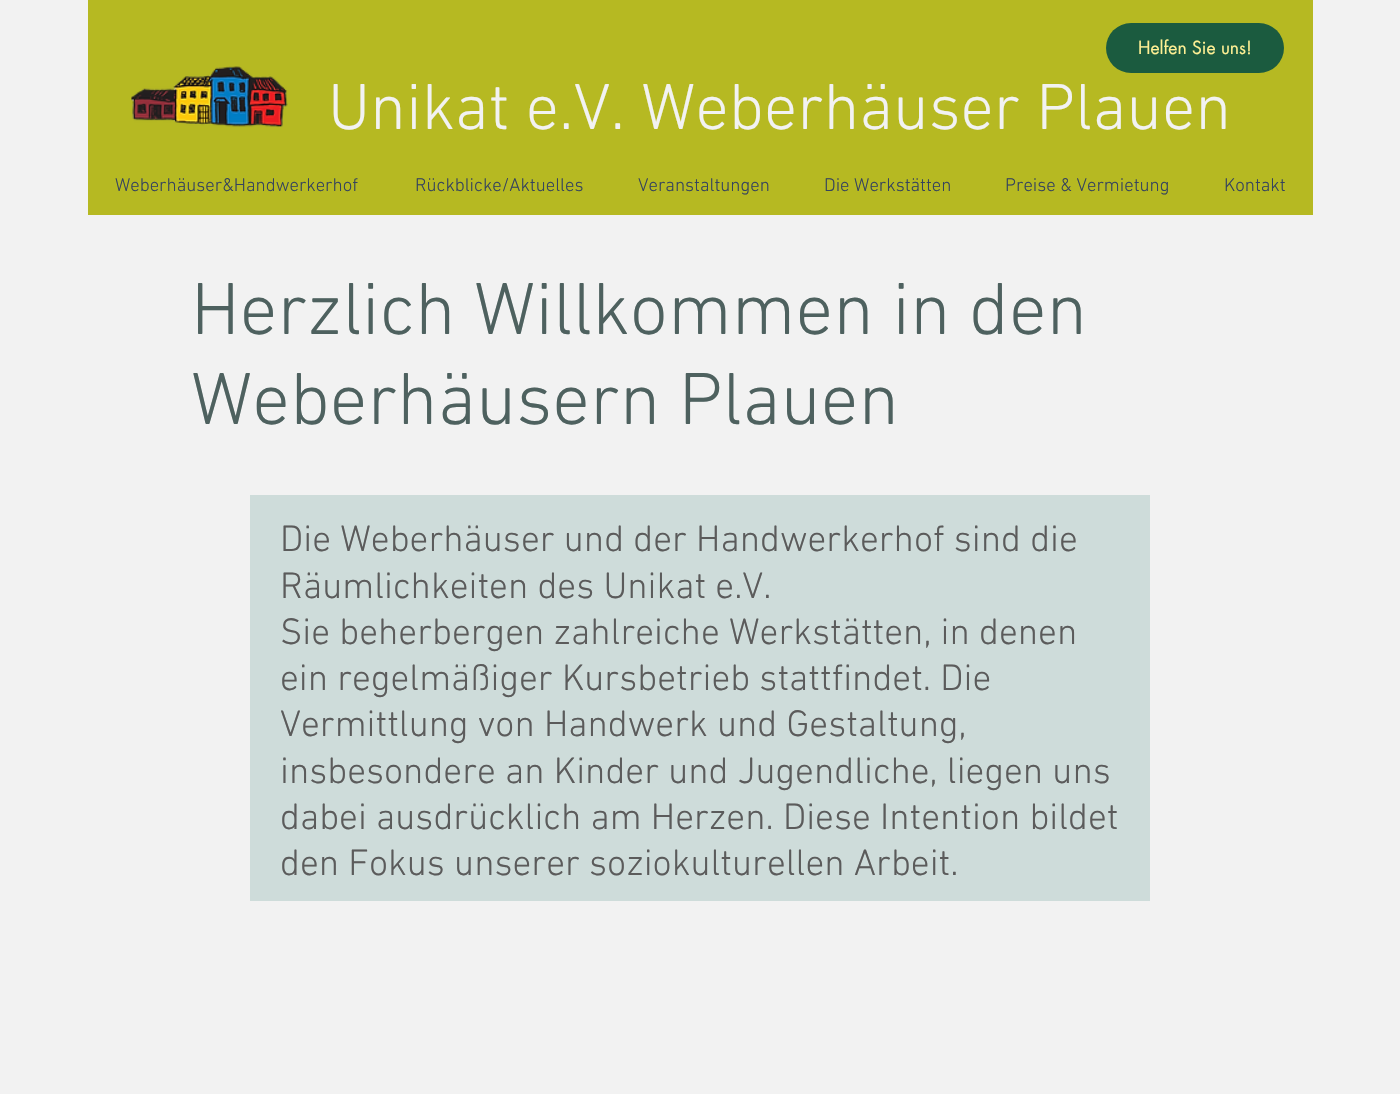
#include "include/core/SkBlurTypes.h"
#include "include/core/SkCanvas.h"
#include "include/core/SkData.h"
#include "include/core/SkFont.h"
#include "include/core/SkFontMgr.h"
#include "include/core/SkImage.h"
#include "include/core/SkMaskFilter.h"
#include "include/core/SkPaint.h"
#include "include/core/SkPathBuilder.h"
#include "include/core/SkTextBlob.h"
#include "include/effects/SkDashPathEffect.h"
#include "include/effects/SkGradientShader.h"
#include "include/utils/SkParsePath.h"

extern sk_sp<SkFontMgr> fontMgr;

static SkFont font(const char* family, int weight, float size, bool italic = false) {
    SkFontStyle style(weight, SkFontStyle::kNormal_Width,
        italic ? SkFontStyle::kItalic_Slant : SkFontStyle::kUpright_Slant);
    SkFont result(fontMgr->matchFamilyStyle(family, style), size);
    result.setSubpixel(true);
    return result;
}

static void drawLabel(SkCanvas* canvas, const char* s, float x, float y, const SkFont& font, SkColor color) {
    SkPaint ink(SkColor4f::FromColor(color));
    ink.setAntiAlias(true);
    canvas->drawString(s, x, y, font, ink);
}

static void fillRect(SkCanvas* canvas, float x, float y, float w, float h, SkColor color) {
    SkPaint ink(SkColor4f::FromColor(color));
    ink.setAntiAlias(true);
    canvas->drawRect(SkRect::MakeXYWH(x, y, w, h), ink);
}

static void fillRRect(SkCanvas* canvas, float x, float y, float w, float h, float radius, SkColor color) {
    SkPaint ink(SkColor4f::FromColor(color));
    ink.setAntiAlias(true);
    canvas->drawRoundRect(SkRect::MakeXYWH(x, y, w, h), radius, radius, ink);
}

static void drawPhoto(SkCanvas* canvas, const char* path, float x, float y, float w, float h) {
    auto image = SkImages::DeferredFromEncodedData(SkData::MakeFromFileName(path));
    canvas->drawImageRect(image, SkRect::MakeXYWH(x, y, w, h), SkSamplingOptions());
}

void draw(SkCanvas* canvas) {
    SkPaint paint;
    paint.setAntiAlias(true);
    canvas->clear(0xFFF2F2F2);
    fillRect(canvas, 88, 0, 1225, 215, 0xFFB6B922);
    fillRRect(canvas, 1106, 23, 178, 50, 25, 0xFF1B5B3F);
    SkFont font1 = font("futura", 400, 17.5f);
    drawLabel(canvas, "Helfen Sie uns!", 1138, 54, font1, 0xFFFFF094);
    drawPhoto(canvas, "assets/img1.png", 131, 66, 157, 62);
    SkFont font2 = font("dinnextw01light", 300, 66.25f);
    drawLabel(canvas, "Unikat e.V. Weberhäuser Plauen", 328, 129, font2, 0xFFF2F2F2);
    SkFont font3 = font("dinnextw01light", 300, 18.75f);
    drawLabel(canvas, "Weberhäuser&Handwerkerhof", 115, 191, font3, 0xFF35435D);
    drawLabel(canvas, "Rückblicke/Aktuelles", 415, 191, font3, 0xFF35435D);
    drawLabel(canvas, "Veranstaltungen", 638, 191, font3, 0xFF35435D);
    drawLabel(canvas, "Die Werkstätten", 824, 191, font3, 0xFF35435D);
    drawLabel(canvas, "Preise & Vermietung", 1005, 191, font3, 0xFF35435D);
    drawLabel(canvas, "Kontakt", 1224, 191, font3, 0xFF35435D);
    SkFont font4 = font("dinnextw01light", 300, 75);
    drawLabel(canvas, "Herzlich Willkommen in den", 191, 334, font4, 0xFF4E615F);
    drawLabel(canvas, "Weberhäusern Plauen", 191, 424, font4, 0xFF4E615F);
    fillRect(canvas, 250, 495, 900, 406, 0xFFCEDCDA);
    SkFont font5 = font("dinnextw01light", 300, 37.5f);
    drawLabel(canvas, "Die Weberhäuser und der Handwerkerhof sind die", 280, 551, font5, 0xFF5B5B5B);
    drawLabel(canvas, "Räumlichkeiten des Unikat e.V.", 280, 598, font5, 0xFF5B5B5B);
    drawLabel(canvas, "Sie beherbergen zahlreiche Werkstätten, in denen", 280, 644, font5, 0xFF5B5B5B);
    drawLabel(canvas, "ein regelmäßiger Kursbetrieb stattfindet. Die", 280, 690, font5, 0xFF5B5B5B);
    drawLabel(canvas, "Vermittlung von Handwerk und Gestaltung,", 280, 736, font5, 0xFF5B5B5B);
    drawLabel(canvas, "insbesondere an Kinder und Jugendliche, liegen uns", 280, 783, font5, 0xFF5B5B5B);
    drawLabel(canvas, "dabei ausdrücklich am Herzen. Diese Intention bildet", 280, 829, font5, 0xFF5B5B5B);
    drawLabel(canvas, "den Fokus unserer soziokulturellen Arbeit.", 280, 875, font5, 0xFF5B5B5B);
}
